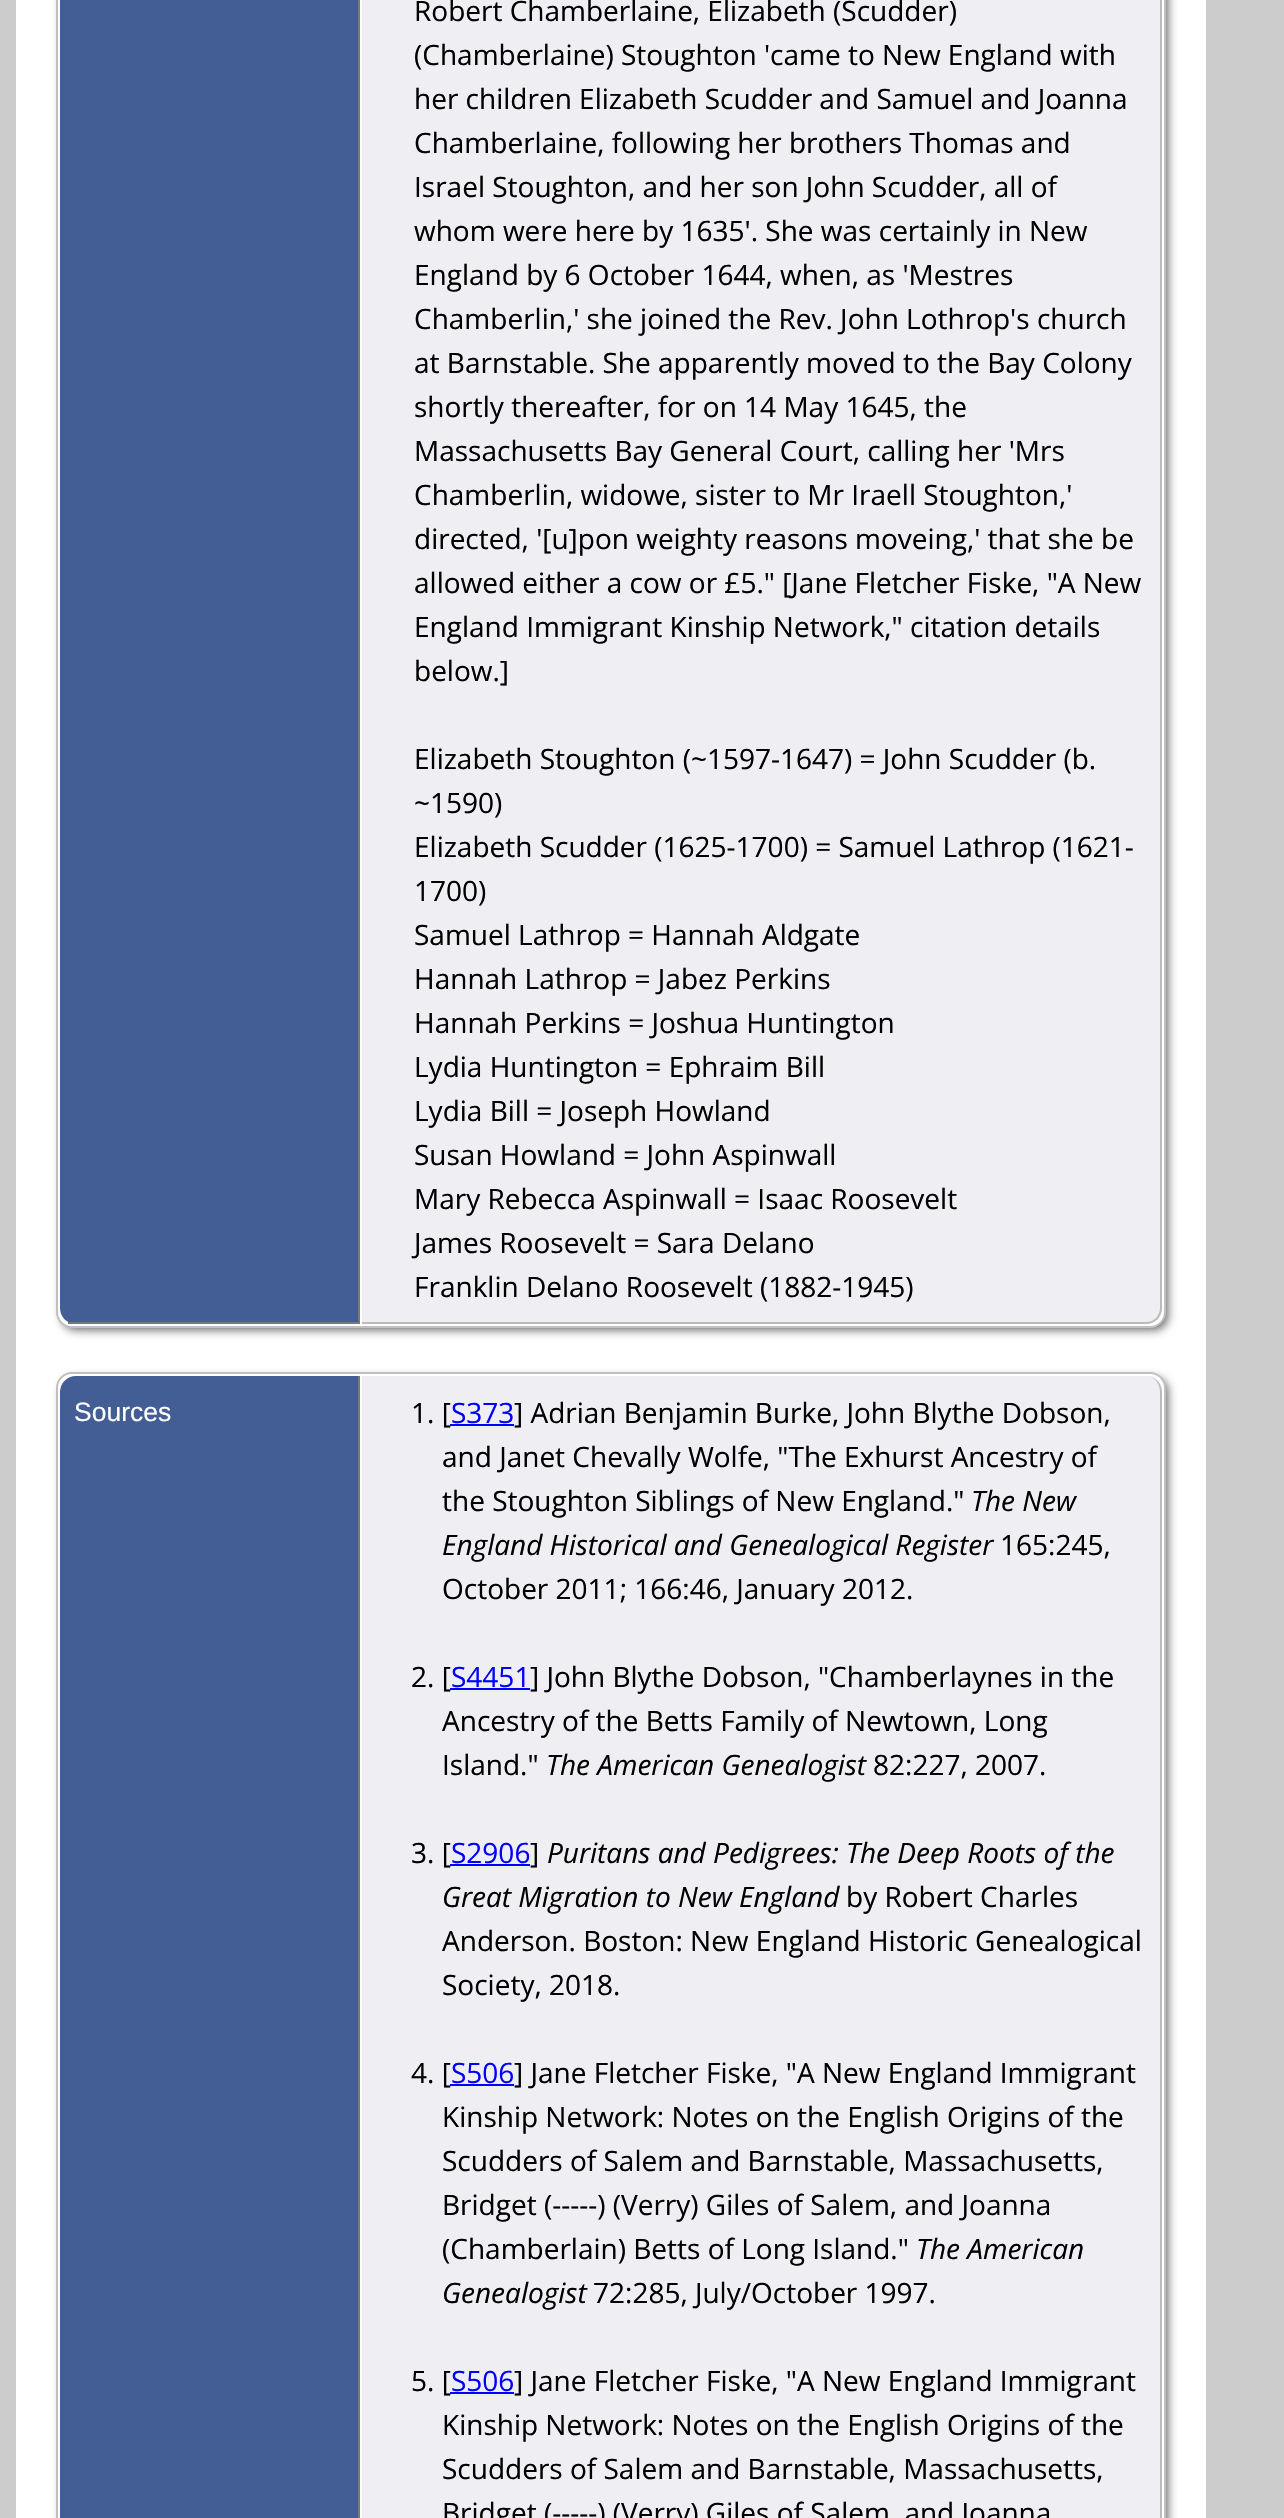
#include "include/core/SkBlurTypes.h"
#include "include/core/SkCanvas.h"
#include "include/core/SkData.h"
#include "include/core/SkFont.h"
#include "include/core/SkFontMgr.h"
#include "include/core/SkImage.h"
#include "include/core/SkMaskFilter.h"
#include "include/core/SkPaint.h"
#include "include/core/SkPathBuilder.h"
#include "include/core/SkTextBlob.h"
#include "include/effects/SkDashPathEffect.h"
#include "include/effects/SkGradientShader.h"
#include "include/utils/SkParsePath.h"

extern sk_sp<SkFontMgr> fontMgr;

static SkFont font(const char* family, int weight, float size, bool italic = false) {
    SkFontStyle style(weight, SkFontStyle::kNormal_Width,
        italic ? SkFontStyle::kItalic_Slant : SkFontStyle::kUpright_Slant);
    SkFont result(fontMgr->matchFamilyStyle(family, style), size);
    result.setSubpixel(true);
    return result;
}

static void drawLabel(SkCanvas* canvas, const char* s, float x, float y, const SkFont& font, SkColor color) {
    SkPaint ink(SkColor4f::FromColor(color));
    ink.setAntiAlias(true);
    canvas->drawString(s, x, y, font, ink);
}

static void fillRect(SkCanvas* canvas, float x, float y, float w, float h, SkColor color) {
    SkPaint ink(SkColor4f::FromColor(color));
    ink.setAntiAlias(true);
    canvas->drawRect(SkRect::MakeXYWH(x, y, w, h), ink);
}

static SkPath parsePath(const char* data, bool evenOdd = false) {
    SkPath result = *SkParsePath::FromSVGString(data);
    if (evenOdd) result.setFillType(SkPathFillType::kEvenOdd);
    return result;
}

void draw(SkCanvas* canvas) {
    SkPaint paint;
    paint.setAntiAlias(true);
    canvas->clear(0xFFCCCCCC);
    fillRect(canvas, 16, 0, 1190, 2518, 0xFFFFFFFF);
    paint.setColor(0xFF666666);
    paint.setMaskFilter(SkMaskFilter::MakeBlur(kNormal_SkBlurStyle, 5));
    canvas->drawRoundRect(SkRect::MakeXYWH(62, -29, 1106, 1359), 14, 14, paint);
    paint.setMaskFilter(nullptr);
    paint.setColor(0xFFFFFFFF);
    canvas->drawRoundRect(SkRect::MakeXYWH(57, -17, 1108, 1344), 15, 15, paint);
    paint.setStroke(true);
    paint.setStrokeWidth(2);
    paint.setColor(0xFFC0C0C0);
    canvas->drawRoundRect(SkRect::MakeXYWH(57, -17, 1108, 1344), 15, 15, paint);
    paint.setStroke(false);
    paint.setColor(0xFF435E95);
    canvas->drawPath(parsePath("M76-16H360V1324H76C67 1324 60 1317 60 1308V0C60-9 67-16 76-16Z"), paint);
    fillRect(canvas, 358, 0, 2, 1324, 0xFF777777);
    fillRect(canvas, 68, 1322, 292, 2, 0xFF777777);
    paint.setColor(0xFFEEEEF3);
    canvas->drawPath(parsePath("M362-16H1146C1155-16 1162-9 1162 0V1308C1162 1317 1155 1324 1146 1324H362Z"), paint);
    paint.setColor(0xFFBBBBBB);
    canvas->drawPath(parsePath("M362-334H1146C1155-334 1162-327 1162-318V1308C1162 1317 1155 1324 1146 1324H362ZM362-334H1146C1154-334 1160-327 1160-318V1308C1160 1316 1154 1322 1146 1322H362Z", true), paint);
    SkFont font1 = font("Open Sans", 400, 28);
    drawLabel(canvas, "Robert Chamberlaine, Elizabeth (Scudder)", 414, 21, font1, 0xFF000000);
    drawLabel(canvas, "(Chamberlaine) Stoughton 'came to New England with", 414, 65, font1, 0xFF000000);
    drawLabel(canvas, "her children Elizabeth Scudder and Samuel and Joanna", 414, 109, font1, 0xFF000000);
    drawLabel(canvas, "Chamberlaine, following her brothers Thomas and", 414, 153, font1, 0xFF000000);
    drawLabel(canvas, "Israel Stoughton, and her son John Scudder, all of", 414, 197, font1, 0xFF000000);
    drawLabel(canvas, "whom were here by 1635'. She was certainly in New", 414, 241, font1, 0xFF000000);
    drawLabel(canvas, "England by 6 October 1644, when, as 'Mestres", 414, 285, font1, 0xFF000000);
    drawLabel(canvas, "Chamberlin,' she joined the Rev. John Lothrop's church", 414, 329, font1, 0xFF000000);
    drawLabel(canvas, "at Barnstable. She apparently moved to the Bay Colony", 414, 373, font1, 0xFF000000);
    drawLabel(canvas, "shortly thereafter, for on 14 May 1645, the", 414, 417, font1, 0xFF000000);
    drawLabel(canvas, "Massachusetts Bay General Court, calling her 'Mrs", 414, 461, font1, 0xFF000000);
    drawLabel(canvas, "Chamberlin, widowe, sister to Mr Iraell Stoughton,'", 414, 505, font1, 0xFF000000);
    drawLabel(canvas, "directed, '[u]pon weighty reasons moveing,' that she be", 414, 549, font1, 0xFF000000);
    drawLabel(canvas, "allowed either a cow or £5.\" [Jane Fletcher Fiske, \"A New", 414, 593, font1, 0xFF000000);
    drawLabel(canvas, "England Immigrant Kinship Network,\" citation details", 414, 637, font1, 0xFF000000);
    drawLabel(canvas, "below.]", 414, 681, font1, 0xFF000000);
    drawLabel(canvas, "Elizabeth Stoughton (~1597-1647) = John Scudder (b.", 414, 769, font1, 0xFF000000);
    drawLabel(canvas, "~1590)", 414, 813, font1, 0xFF000000);
    drawLabel(canvas, "Elizabeth Scudder (1625-1700) = Samuel Lathrop (1621-", 414, 857, font1, 0xFF000000);
    drawLabel(canvas, "1700)", 414, 901, font1, 0xFF000000);
    drawLabel(canvas, "Samuel Lathrop = Hannah Aldgate", 414, 945, font1, 0xFF000000);
    drawLabel(canvas, "Hannah Lathrop = Jabez Perkins", 414, 989, font1, 0xFF000000);
    drawLabel(canvas, "Hannah Perkins = Joshua Huntington", 414, 1033, font1, 0xFF000000);
    drawLabel(canvas, "Lydia Huntington = Ephraim Bill", 414, 1077, font1, 0xFF000000);
    drawLabel(canvas, "Lydia Bill = Joseph Howland", 414, 1121, font1, 0xFF000000);
    drawLabel(canvas, "Susan Howland = John Aspinwall", 414, 1165, font1, 0xFF000000);
    drawLabel(canvas, "Mary Rebecca Aspinwall = Isaac Roosevelt", 414, 1209, font1, 0xFF000000);
    drawLabel(canvas, "James Roosevelt = Sara Delano", 414, 1253, font1, 0xFF000000);
    drawLabel(canvas, "Franklin Delano Roosevelt (1882-1945)", 414, 1297, font1, 0xFF000000);
    paint.setColor(0xFF666666);
    paint.setMaskFilter(SkMaskFilter::MakeBlur(kNormal_SkBlurStyle, 5));
    canvas->drawRoundRect(SkRect::MakeXYWH(62, 1378, 1106, 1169), 14, 14, paint);
    paint.setMaskFilter(nullptr);
    paint.setColor(0xFFFFFFFF);
    canvas->drawRoundRect(SkRect::MakeXYWH(57, 1373, 1108, 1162), 15, 15, paint);
    paint.setStroke(true);
    paint.setColor(0xFFC0C0C0);
    canvas->drawRoundRect(SkRect::MakeXYWH(57, 1373, 1108, 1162), 15, 15, paint);
    paint.setStroke(false);
    paint.setColor(0xFF435E95);
    canvas->drawPath(parsePath("M76 1376H360V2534H76C67 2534 60 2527 60 2518V1392C60 1383 67 1376 76 1376Z"), paint);
    fillRect(canvas, 358, 1376, 2, 1142, 0xFF777777);
    SkFont font2 = font("Liberation Sans", 400, 26.5f);
    drawLabel(canvas, "Sources", 74, 1421, font2, 0xFFFFFFFF);
    paint.setColor(0xFFEEEEF3);
    canvas->drawPath(parsePath("M362 1376H1146C1155 1376 1162 1383 1162 1392V2518C1162 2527 1155 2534 1146 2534H362Z"), paint);
    paint.setColor(0xFFBBBBBB);
    canvas->drawPath(parsePath("M362 1376H1146C1155 1376 1162 1383 1162 1392V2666C1162 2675 1155 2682 1146 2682H362ZM362 1376H1146C1154 1376 1160 1383 1160 1392V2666C1160 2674 1154 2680 1146 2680H362Z", true), paint);
    drawLabel(canvas, "1. [", 411, 1423, font1, 0xFF000000);
    drawLabel(canvas, "S373", 451, 1423, font1, 0xFF0000FF);
    fillRect(canvas, 450, 1424, 64, 2, 0xFF0000FF);
    drawLabel(canvas, "] Adrian Benjamin Burke, John Blythe Dobson,", 514, 1423, font1, 0xFF000000);
    drawLabel(canvas, "and Janet Chevally Wolfe, \"The Exhurst Ancestry of", 442, 1467, font1, 0xFF000000);
    drawLabel(canvas, "the Stoughton Siblings of New England.\"", 442, 1511, font1, 0xFF000000);
    SkFont font3 = font("Open Sans", 400, 28, true);
    drawLabel(canvas, "The New", 971, 1511, font3, 0xFF000000);
    drawLabel(canvas, "England Historical and Genealogical Register", 442, 1555, font3, 0xFF000000);
    drawLabel(canvas, "165:245,", 1000, 1555, font1, 0xFF000000);
    drawLabel(canvas, "October 2011; 166:46, January 2012.", 442, 1599, font1, 0xFF000000);
    drawLabel(canvas, "2. [", 411, 1687, font1, 0xFF000000);
    drawLabel(canvas, "S4451", 451, 1687, font1, 0xFF0000FF);
    fillRect(canvas, 450, 1688, 80, 2, 0xFF0000FF);
    drawLabel(canvas, "] John Blythe Dobson, \"Chamberlaynes in the", 530, 1687, font1, 0xFF000000);
    drawLabel(canvas, "Ancestry of the Betts Family of Newtown, Long", 442, 1731, font1, 0xFF000000);
    drawLabel(canvas, "Island.\"", 442, 1775, font1, 0xFF000000);
    drawLabel(canvas, "The American Genealogist", 546, 1775, font3, 0xFF000000);
    drawLabel(canvas, "82:227, 2007.", 873, 1775, font1, 0xFF000000);
    drawLabel(canvas, "3. [", 411, 1863, font1, 0xFF000000);
    drawLabel(canvas, "S2906", 451, 1863, font1, 0xFF0000FF);
    fillRect(canvas, 450, 1864, 80, 2, 0xFF0000FF);
    drawLabel(canvas, "]", 530, 1863, font1, 0xFF000000);
    drawLabel(canvas, "Puritans and Pedigrees: The Deep Roots of the", 547, 1863, font3, 0xFF000000);
    drawLabel(canvas, "Great Migration to New England", 442, 1907, font3, 0xFF000000);
    drawLabel(canvas, "by Robert Charles", 846, 1907, font1, 0xFF000000);
    drawLabel(canvas, "Anderson. Boston: New England Historic Genealogical", 442, 1951, font1, 0xFF000000);
    drawLabel(canvas, "Society, 2018.", 442, 1995, font1, 0xFF000000);
    drawLabel(canvas, "4. [", 411, 2083, font1, 0xFF000000);
    drawLabel(canvas, "S506", 451, 2083, font1, 0xFF0000FF);
    fillRect(canvas, 450, 2084, 64, 2, 0xFF0000FF);
    drawLabel(canvas, "] Jane Fletcher Fiske, \"A New England Immigrant", 514, 2083, font1, 0xFF000000);
    drawLabel(canvas, "Kinship Network: Notes on the English Origins of the", 442, 2127, font1, 0xFF000000);
    drawLabel(canvas, "Scudders of Salem and Barnstable, Massachusetts,", 442, 2171, font1, 0xFF000000);
    drawLabel(canvas, "Bridget (-----) (Verry) Giles of Salem, and Joanna", 442, 2215, font1, 0xFF000000);
    drawLabel(canvas, "(Chamberlain) Betts of Long Island.\"", 442, 2259, font1, 0xFF000000);
    drawLabel(canvas, "The American", 916, 2259, font3, 0xFF000000);
    drawLabel(canvas, "Genealogist", 442, 2303, font3, 0xFF000000);
    drawLabel(canvas, "72:285, July/October 1997.", 593, 2303, font1, 0xFF000000);
    drawLabel(canvas, "5. [", 411, 2391, font1, 0xFF000000);
    drawLabel(canvas, "S506", 451, 2391, font1, 0xFF0000FF);
    fillRect(canvas, 450, 2392, 64, 2, 0xFF0000FF);
    drawLabel(canvas, "] Jane Fletcher Fiske, \"A New England Immigrant", 514, 2391, font1, 0xFF000000);
    drawLabel(canvas, "Kinship Network: Notes on the English Origins of the", 442, 2435, font1, 0xFF000000);
    drawLabel(canvas, "Scudders of Salem and Barnstable, Massachusetts,", 442, 2479, font1, 0xFF000000);
    drawLabel(canvas, "Bridget (-----) (Verry) Giles of Salem, and Joanna", 442, 2523, font1, 0xFF000000);
}
